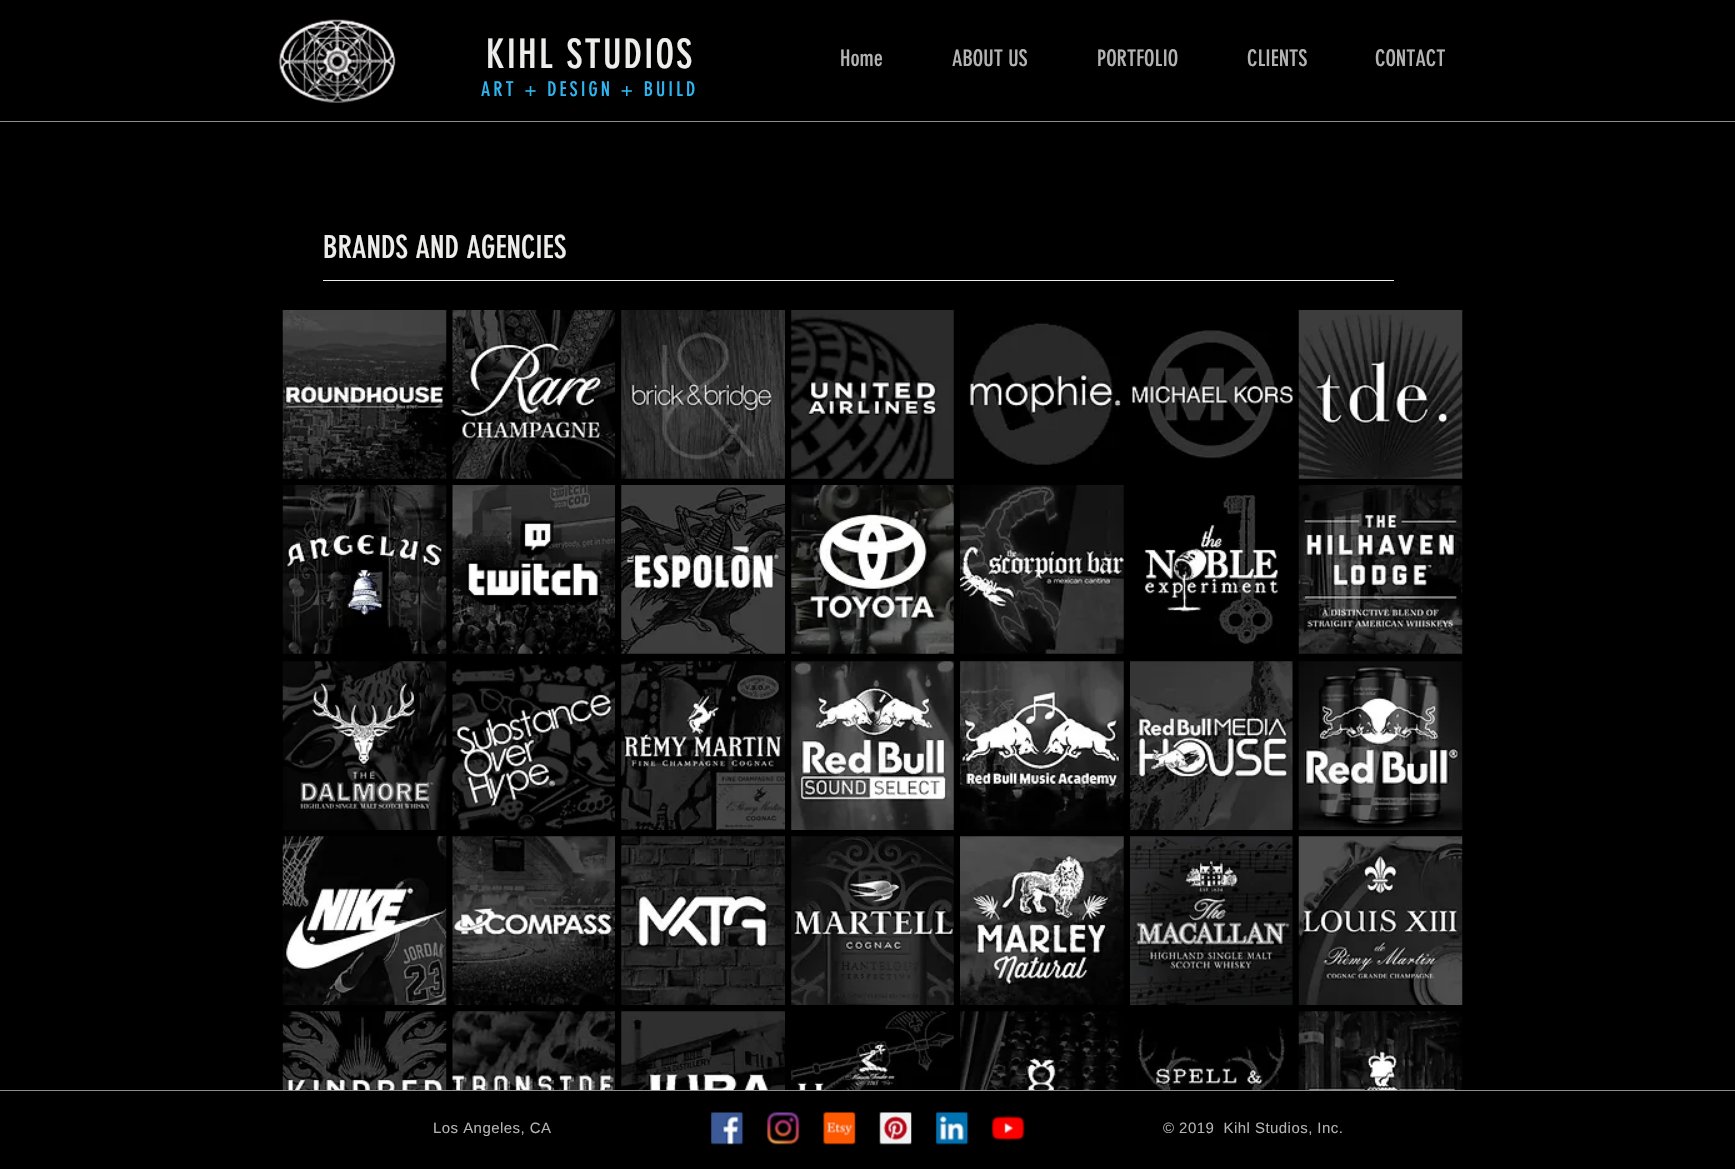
#include "include/core/SkBlurTypes.h"
#include "include/core/SkCanvas.h"
#include "include/core/SkData.h"
#include "include/core/SkFont.h"
#include "include/core/SkFontMgr.h"
#include "include/core/SkImage.h"
#include "include/core/SkMaskFilter.h"
#include "include/core/SkPaint.h"
#include "include/core/SkPathBuilder.h"
#include "include/core/SkTextBlob.h"
#include "include/effects/SkDashPathEffect.h"
#include "include/effects/SkGradientShader.h"
#include "include/utils/SkParsePath.h"

extern sk_sp<SkFontMgr> fontMgr;

static SkFont font(const char* family, int weight, float size, bool italic = false) {
    SkFontStyle style(weight, SkFontStyle::kNormal_Width,
        italic ? SkFontStyle::kItalic_Slant : SkFontStyle::kUpright_Slant);
    SkFont result(fontMgr->matchFamilyStyle(family, style), size);
    result.setSubpixel(true);
    return result;
}

static void drawLabel(SkCanvas* canvas, const char* s, float x, float y, const SkFont& font, SkColor color) {
    SkPaint ink(SkColor4f::FromColor(color));
    ink.setAntiAlias(true);
    canvas->drawString(s, x, y, font, ink);
}

static void drawTracked(SkCanvas* canvas, const char* s, float x, float y, const SkFont& font, const SkPaint& ink, float letter, float word) {
    std::vector<SkGlyphID> glyphs(font.countText(s, strlen(s), SkTextEncoding::kUTF8));
    std::vector<float> xs(glyphs.size());
    font.textToGlyphs(s, strlen(s), SkTextEncoding::kUTF8, glyphs);
    font.getXPos(glyphs, xs, x);
    float extra = 0;
    for (size_t i = 0; i < glyphs.size(); i++) {
        xs[i] += extra;
        extra += letter + word * (glyphs[i] == font.unicharToGlyph(' '));
    }
    canvas->drawTextBlob(SkTextBlob::MakeFromPosHGlyphs(glyphs, xs, y, font), 0, 0, ink);
}

static void fillRect(SkCanvas* canvas, float x, float y, float w, float h, SkColor color) {
    SkPaint ink(SkColor4f::FromColor(color));
    ink.setAntiAlias(true);
    canvas->drawRect(SkRect::MakeXYWH(x, y, w, h), ink);
}

static void drawPhoto(SkCanvas* canvas, const char* path, float x, float y, float w, float h) {
    auto image = SkImages::DeferredFromEncodedData(SkData::MakeFromFileName(path));
    canvas->drawImageRect(image, SkRect::MakeXYWH(x, y, w, h), SkSamplingOptions());
}

void draw(SkCanvas* canvas) {
    SkPaint paint;
    paint.setAntiAlias(true);
    canvas->clear(0xFF000000);
    drawPhoto(canvas, "assets/img1.png", 278, 19, 118, 84);
    SkFont font1 = font("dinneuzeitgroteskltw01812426", 400, 40);
    paint.setColor(0xFFEDEEEB);
    drawTracked(canvas, "KIHL STUDIOS", 486, 68, font1, paint, 2, 0);
    SkFont font2 = font("dinneuzeitgroteskltw01812426", 400, 20);
    paint.setColor(0xFF2EB5F0);
    drawTracked(canvas, "ART + DESIGN + BUILD", 481, 96, font2, paint, 3, 0);
    SkFont font3 = font("dinneuzeitgroteskltw01812426", 400, 22.5f);
    drawLabel(canvas, "Home", 840, 66, font3, 0xFFB3B3B3);
    drawLabel(canvas, "ABOUT US", 952, 66, font3, 0xFFB3B3B3);
    drawLabel(canvas, "PORTFOLIO", 1097, 66, font3, 0xFFB3B3B3);
    drawLabel(canvas, "CLIENTS", 1247, 66, font3, 0xFFB3B3B3);
    drawLabel(canvas, "CONTACT", 1375, 66, font3, 0xFFB3B3B3);
    fillRect(canvas, 0, 121, 1735, 1, 0xFF8E8F8D);
    SkFont font4 = font("dinneuzeitgroteskltw01812426", 400, 31.25f);
    drawLabel(canvas, "BRANDS AND AGENCIES", 323, 258, font4, 0xFFEDEEEB);
    fillRect(canvas, 323, 280, 1071, 1, 0xFFEDEEEB);
    drawPhoto(canvas, "assets/img2.png", 282, 310, 165, 169);
    drawPhoto(canvas, "assets/img3.png", 452, 310, 163, 169);
    drawPhoto(canvas, "assets/img4.png", 621, 310, 164, 169);
    drawPhoto(canvas, "assets/img5.png", 791, 310, 163, 169);
    drawPhoto(canvas, "assets/img6.png", 969, 320, 152, 145);
    drawPhoto(canvas, "assets/img7.png", 1131, 330, 162, 129);
    drawPhoto(canvas, "assets/img8.png", 1298, 310, 165, 169);
    drawPhoto(canvas, "assets/img9.png", 282, 485, 165, 169);
    drawPhoto(canvas, "assets/img10.png", 452, 485, 163, 169);
    drawPhoto(canvas, "assets/img11.png", 621, 485, 164, 169);
    drawPhoto(canvas, "assets/img12.png", 791, 485, 163, 169);
    drawPhoto(canvas, "assets/img13.png", 960, 485, 164, 169);
    drawPhoto(canvas, "assets/img14.png", 1144, 495, 136, 150);
    drawPhoto(canvas, "assets/img15.png", 1298, 485, 165, 169);
    drawPhoto(canvas, "assets/img16.png", 282, 661, 165, 169);
    drawPhoto(canvas, "assets/img17.png", 452, 663, 163, 167);
    drawPhoto(canvas, "assets/img18.png", 621, 661, 164, 169);
    drawPhoto(canvas, "assets/img19.png", 791, 661, 163, 169);
    drawPhoto(canvas, "assets/img20.png", 960, 661, 164, 169);
    drawPhoto(canvas, "assets/img21.png", 1130, 661, 163, 169);
    drawPhoto(canvas, "assets/img22.png", 1298, 661, 165, 169);
    drawPhoto(canvas, "assets/img23.png", 282, 836, 165, 169);
    drawPhoto(canvas, "assets/img24.png", 452, 836, 163, 169);
    drawPhoto(canvas, "assets/img25.png", 621, 836, 164, 169);
    drawPhoto(canvas, "assets/img26.png", 791, 836, 163, 169);
    drawPhoto(canvas, "assets/img27.png", 960, 836, 164, 169);
    drawPhoto(canvas, "assets/img28.png", 1130, 836, 163, 169);
    drawPhoto(canvas, "assets/img29.png", 1298, 836, 165, 169);
    drawPhoto(canvas, "assets/img30.png", 282, 1011, 165, 79);
    drawPhoto(canvas, "assets/img31.png", 452, 1011, 163, 79);
    drawPhoto(canvas, "assets/img32.png", 621, 1011, 164, 79);
    drawPhoto(canvas, "assets/img33.png", 791, 1011, 163, 79);
    drawPhoto(canvas, "assets/img34.png", 960, 1011, 164, 79);
    drawPhoto(canvas, "assets/img35.png", 1135, 1026, 155, 64);
    drawPhoto(canvas, "assets/img36.png", 1298, 1011, 165, 79);
    fillRect(canvas, 0, 1090, 1735, 1, 0xFF8E8F8D);
    SkFont font5 = font("Liberation Sans", 400, 15);
    paint.setColor(0xFFB3B3B3);
    drawTracked(canvas, "Los Angeles, CA", 433, 1133, font5, paint, 0.45f, 0);
    drawPhoto(canvas, "assets/img37.png", 711, 1112, 33, 33);
    drawPhoto(canvas, "assets/img38.png", 767, 1112, 33, 33);
    drawPhoto(canvas, "assets/img39.png", 823, 1112, 33, 33);
    drawPhoto(canvas, "assets/img40.png", 879, 1112, 33, 33);
    drawPhoto(canvas, "assets/img41.png", 936, 1112, 33, 33);
    drawPhoto(canvas, "assets/img42.png", 992, 1115, 33, 26);
    drawTracked(canvas, "© 2019  Kihl Studios, Inc.", 1163, 1133, font5, paint, 0.45f, 0);
}
